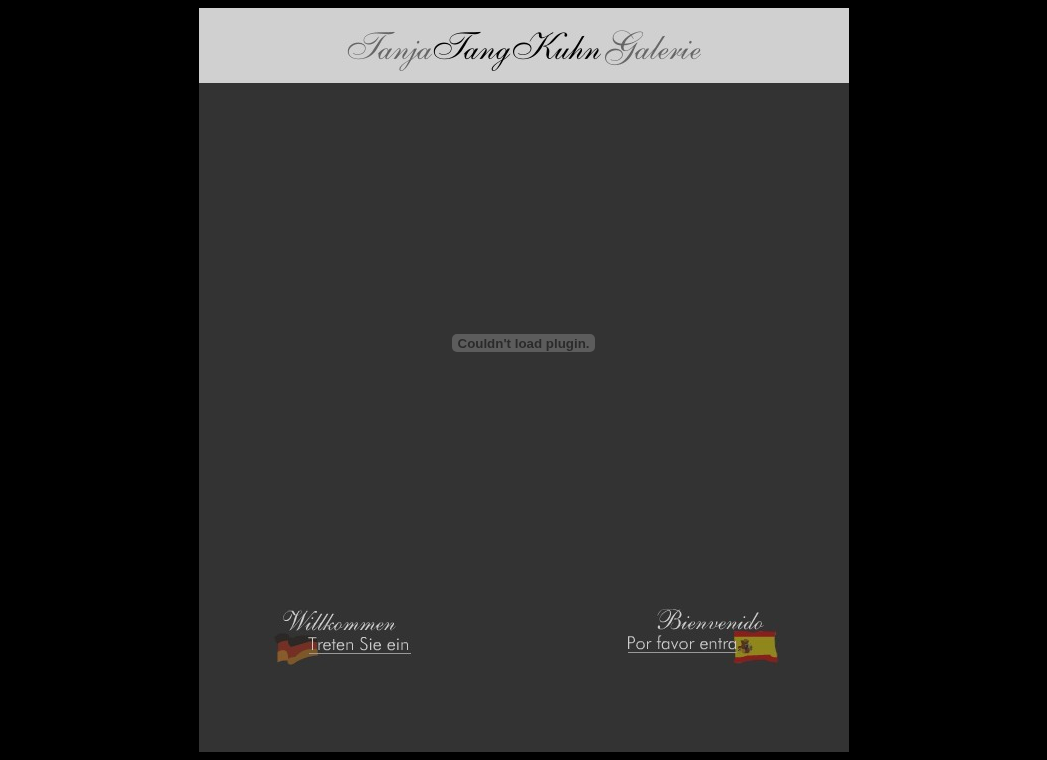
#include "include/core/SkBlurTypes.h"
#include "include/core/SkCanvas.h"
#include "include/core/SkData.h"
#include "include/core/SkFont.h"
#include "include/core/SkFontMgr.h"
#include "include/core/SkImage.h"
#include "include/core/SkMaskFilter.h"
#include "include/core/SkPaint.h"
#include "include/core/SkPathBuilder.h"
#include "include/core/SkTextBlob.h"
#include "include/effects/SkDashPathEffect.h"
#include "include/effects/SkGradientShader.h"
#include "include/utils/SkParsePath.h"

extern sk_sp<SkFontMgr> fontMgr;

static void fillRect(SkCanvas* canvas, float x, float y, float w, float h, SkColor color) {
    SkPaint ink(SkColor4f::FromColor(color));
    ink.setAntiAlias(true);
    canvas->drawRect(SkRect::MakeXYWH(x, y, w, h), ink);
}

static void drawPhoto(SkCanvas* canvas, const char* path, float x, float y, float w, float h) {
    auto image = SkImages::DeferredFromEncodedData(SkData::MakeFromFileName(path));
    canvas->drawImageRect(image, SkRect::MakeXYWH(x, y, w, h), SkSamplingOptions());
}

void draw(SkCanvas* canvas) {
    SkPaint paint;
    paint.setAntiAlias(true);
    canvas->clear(0xFF000000);
    fillRect(canvas, 199, 83, 650, 669, 0xFF333333);
    fillRect(canvas, 199, 8, 650, 75, 0xFFD0D0D0);
    drawPhoto(canvas, "assets/img1.png", 342, 30, 360, 41);
    drawPhoto(canvas, "assets/img2.png", 452, 334, 143, 18);
    drawPhoto(canvas, "assets/img3.png", 269, 608, 144, 59);
    drawPhoto(canvas, "assets/img4.png", 628, 604, 151, 63);
}
